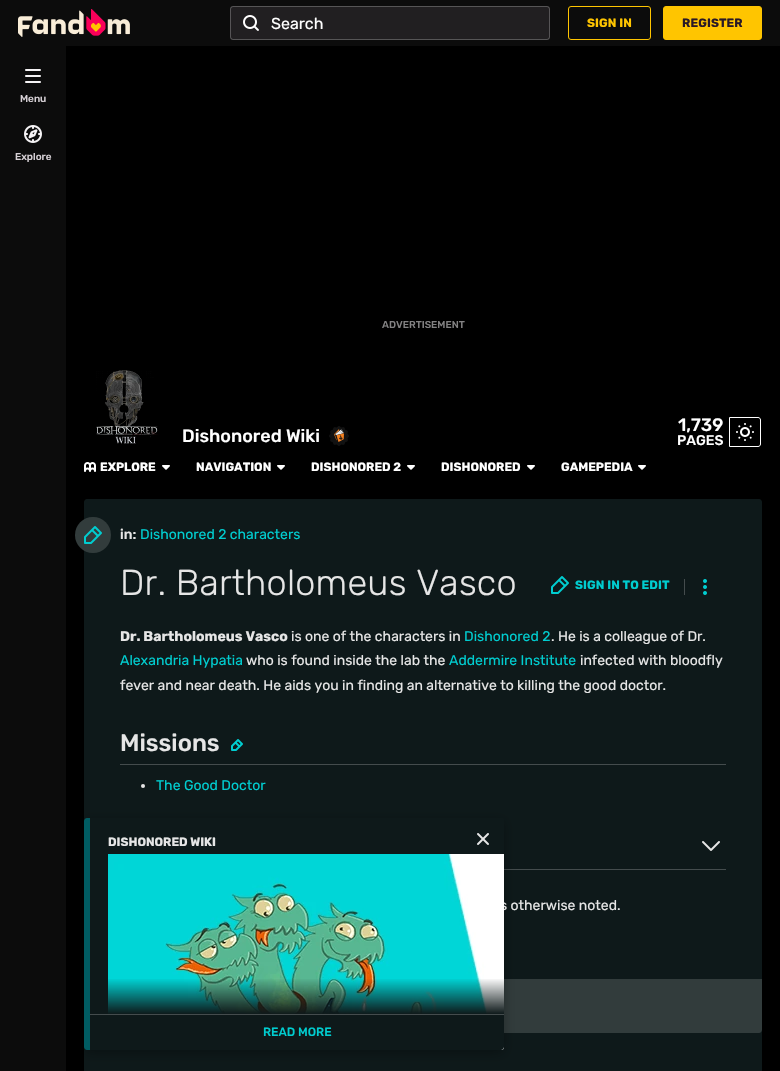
#include "include/core/SkBlurTypes.h"
#include "include/core/SkCanvas.h"
#include "include/core/SkData.h"
#include "include/core/SkFont.h"
#include "include/core/SkFontMgr.h"
#include "include/core/SkImage.h"
#include "include/core/SkMaskFilter.h"
#include "include/core/SkPaint.h"
#include "include/core/SkPathBuilder.h"
#include "include/core/SkTextBlob.h"
#include "include/effects/SkDashPathEffect.h"
#include "include/effects/SkGradientShader.h"
#include "include/utils/SkParsePath.h"

extern sk_sp<SkFontMgr> fontMgr;

static SkFont font(const char* family, int weight, float size, bool italic = false) {
    SkFontStyle style(weight, SkFontStyle::kNormal_Width,
        italic ? SkFontStyle::kItalic_Slant : SkFontStyle::kUpright_Slant);
    SkFont result(fontMgr->matchFamilyStyle(family, style), size);
    result.setSubpixel(true);
    return result;
}

static void drawLabel(SkCanvas* canvas, const char* s, float x, float y, const SkFont& font, SkColor color) {
    SkPaint ink(SkColor4f::FromColor(color));
    ink.setAntiAlias(true);
    canvas->drawString(s, x, y, font, ink);
}

static void drawTracked(SkCanvas* canvas, const char* s, float x, float y, const SkFont& font, const SkPaint& ink, float letter, float word) {
    std::vector<SkGlyphID> glyphs(font.countText(s, strlen(s), SkTextEncoding::kUTF8));
    std::vector<float> xs(glyphs.size());
    font.textToGlyphs(s, strlen(s), SkTextEncoding::kUTF8, glyphs);
    font.getXPos(glyphs, xs, x);
    float extra = 0;
    for (size_t i = 0; i < glyphs.size(); i++) {
        xs[i] += extra;
        extra += letter + word * (glyphs[i] == font.unicharToGlyph(' '));
    }
    canvas->drawTextBlob(SkTextBlob::MakeFromPosHGlyphs(glyphs, xs, y, font), 0, 0, ink);
}

static void fillRect(SkCanvas* canvas, float x, float y, float w, float h, SkColor color) {
    SkPaint ink(SkColor4f::FromColor(color));
    ink.setAntiAlias(true);
    canvas->drawRect(SkRect::MakeXYWH(x, y, w, h), ink);
}

static void fillRRect(SkCanvas* canvas, float x, float y, float w, float h, float radius, SkColor color) {
    SkPaint ink(SkColor4f::FromColor(color));
    ink.setAntiAlias(true);
    canvas->drawRoundRect(SkRect::MakeXYWH(x, y, w, h), radius, radius, ink);
}

static void drawPhoto(SkCanvas* canvas, const char* path, float x, float y, float w, float h) {
    auto image = SkImages::DeferredFromEncodedData(SkData::MakeFromFileName(path));
    canvas->drawImageRect(image, SkRect::MakeXYWH(x, y, w, h), SkSamplingOptions());
}

static SkPath parsePath(const char* data, bool evenOdd = false) {
    SkPath result = *SkParsePath::FromSVGString(data);
    if (evenOdd) result.setFillType(SkPathFillType::kEvenOdd);
    return result;
}

void draw(SkCanvas* canvas) {
    SkPaint paint;
    paint.setAntiAlias(true);
    canvas->clear(0xFF000000);
    fillRect(canvas, 0, 0, 780, 46, 0xFF0C0C0C);
    drawPhoto(canvas, "assets/img1.png", 18, 9, 112, 28);
    fillRRect(canvas, 230, 6, 320, 34, 3, 0xFF211F21);
    paint.setStroke(true);
    paint.setStrokeWidth(1);
    paint.setColor(0x40F5F3F5);
    canvas->drawRoundRect(SkRect::MakeXYWH(230.5f, 6.5f, 319, 33), 2.5f, 2.5f, paint);
    drawPhoto(canvas, "assets/img2.png", 243, 15, 16, 16);
    SkFont font1 = font("Rubik", 400, 16);
    drawLabel(canvas, "Search", 271, 29, font1, 0xFFFFFFFF);
    paint.setColor(0xFFFFC500);
    canvas->drawRoundRect(SkRect::MakeXYWH(568.5f, 6.5f, 82, 33), 2.5f, 2.5f, paint);
    SkFont font2 = font("Rubik", 700, 12);
    paint.setStroke(false);
    drawTracked(canvas, "SIGN IN", 587, 27, font2, paint, 0.1f, 0);
    canvas->drawRoundRect(SkRect::MakeXYWH(663.5f, 6.5f, 98, 33), 2.5f, 2.5f, paint);
    paint.setStroke(true);
    canvas->drawRoundRect(SkRect::MakeXYWH(663.5f, 6.5f, 98, 33), 2.5f, 2.5f, paint);
    paint.setStroke(false);
    paint.setColor(0xFF291927);
    drawTracked(canvas, "REGISTER", 682, 27, font2, paint, 0.1f, 0);
    paint.setColor(0xFF0E191A);
    canvas->drawPath(parsePath("M87 499H759C760.5 499 762 500.5 762 502V979H84V502C84 500.5 85.5 499 87 499Z"), paint);
    fillRect(canvas, 504, 869, 222, 1, 0xFF444C4D);
    fillRect(canvas, 84, 1031, 678, 40, 0xFF0E191A);
    paint.setColor(0xFF323C3C);
    canvas->drawPath(parsePath("M84 979H762V1030C762 1031.5 760.5 1033 759 1033H87C85.5 1033 84 1031.5 84 1030Z"), paint);
    paint.setColor(0x4D000000);
    paint.setMaskFilter(SkMaskFilter::MakeBlur(kNormal_SkBlurStyle, 6));
    canvas->drawRoundRect(SkRect::MakeXYWH(84, 821, 420, 232), 3, 3, paint);
    paint.setMaskFilter(nullptr);
    fillRect(canvas, 0, 46, 66, 1025, 0xFF0C0C0C);
    drawPhoto(canvas, "assets/img3.png", 25, 69, 16, 14);
    SkFont font3 = font("Rubik", 500, 10);
    drawLabel(canvas, "Menu", 20, 102, font3, 0xFFD6D0D5);
    drawPhoto(canvas, "assets/img4.png", 24, 125, 18, 18);
    drawLabel(canvas, "Explore", 15, 160, font3, 0xFFD6D0D5);
    drawLabel(canvas, "ADVERTISEMENT", 382, 328, font3, 0xFF838283);
    drawPhoto(canvas, "assets/img5.png", 96, 370, 62, 74);
    SkFont font4 = font("Rubik", 500, 18);
    drawLabel(canvas, "Dishonored Wiki", 182, 442, font4, 0xFFFFFFFF);
    drawPhoto(canvas, "assets/img6.png", 329, 426, 20, 20);
    drawLabel(canvas, "1,739", 678, 431, font4, 0xFFFFFFFF);
    SkFont font5 = font("Rubik", 500, 14);
    drawLabel(canvas, "PAGES", 677, 445, font5, 0xFFFFFFFF);
    paint.setStroke(true);
    paint.setColor(0xFFFFFFFF);
    canvas->drawPath(parsePath("M729.5 417.5H758C759.5 417.5 760.5 418.5 760.5 420V444C760.5 445.5 759.5 446.5 758 446.5H729.5Z"), paint);
    drawPhoto(canvas, "assets/img7.png", 736, 423, 18, 18);
    drawPhoto(canvas, "assets/img8.png", 84, 462, 12, 10);
    drawLabel(canvas, "EXPLORE", 100, 471, font2, 0xFFFFFFFF);
    drawPhoto(canvas, "assets/img9.png", 162, 465, 8, 5);
    drawLabel(canvas, "NAVIGATION", 196, 471, font2, 0xFFFFFFFF);
    drawPhoto(canvas, "assets/img9.png", 277, 465, 8, 5);
    drawLabel(canvas, "DISHONORED 2", 311, 471, font2, 0xFFFFFFFF);
    drawPhoto(canvas, "assets/img9.png", 407, 465, 8, 5);
    drawLabel(canvas, "DISHONORED", 441, 471, font2, 0xFFFFFFFF);
    drawPhoto(canvas, "assets/img9.png", 527, 465, 8, 5);
    drawLabel(canvas, "GAMEPEDIA", 561, 471, font2, 0xFFFFFFFF);
    drawPhoto(canvas, "assets/img9.png", 638, 465, 8, 5);
    paint.setStroke(false);
    paint.setColor(0xFF323C3C);
    canvas->drawCircle(93, 535, 18, paint);
    drawPhoto(canvas, "assets/img10.png", 84, 526, 18, 18);
    drawLabel(canvas, "in:", 120, 539, font5, 0xFFE6E6E6);
    SkFont font6 = font("Rubik", 400, 14);
    drawLabel(canvas, "Dishonored 2 characters", 140, 539, font6, 0xFF00CDD0);
    SkFont font7 = font("Rubik", 300, 36);
    paint.setColor(0xFFE6E6E6);
    drawTracked(canvas, "Dr. Bartholomeus Vasco", 120, 595, font7, paint, 0.25f, 0);
    drawPhoto(canvas, "assets/img11.png", 551, 576, 18, 18);
    paint.setColor(0xFF00CDD0);
    drawTracked(canvas, "SIGN IN TO EDIT", 575, 589, font2, paint, 0.1f, 0);
    fillRect(canvas, 684, 579, 1, 16, 0xFF444C4D);
    drawPhoto(canvas, "assets/img12.png", 703, 579, 4, 16);
    SkFont font8 = font("Rubik", 700, 14);
    drawLabel(canvas, "Dr. Bartholomeus Vasco", 120, 641, font8, 0xFFE6E6E6);
    drawLabel(canvas, "is one of the characters in", 291, 641, font6, 0xFFE6E6E6);
    drawLabel(canvas, "Dishonored 2", 464, 641, font6, 0xFF00CDD0);
    drawLabel(canvas, ". He is a colleague of Dr.", 551, 641, font6, 0xFFE6E6E6);
    drawLabel(canvas, "Alexandria Hypatia", 120, 665, font6, 0xFF00CDD0);
    drawLabel(canvas, "who is found inside the lab the", 246, 665, font6, 0xFFE6E6E6);
    drawLabel(canvas, "Addermire Institute", 449, 665, font6, 0xFF00CDD0);
    drawLabel(canvas, "infected with bloodfly", 580, 665, font6, 0xFFE6E6E6);
    drawLabel(canvas, "fever and near death. He aids you in finding an alternative to killing the good doctor.", 120, 690, font6, 0xFFE6E6E6);
    fillRect(canvas, 120, 764, 606, 1, 0xFF444C4D);
    SkFont font9 = font("Rubik", 500, 24);
    drawLabel(canvas, "Missions", 120, 751, font9, 0xFFE6E6E6);
    drawPhoto(canvas, "assets/img13.png", 231, 739, 12, 12);
    paint.setColor(0xFFE6E6E6);
    canvas->drawCircle(143, 786, 2, paint);
    drawLabel(canvas, "The Good Doctor", 156, 790, font6, 0xFF00CDD0);
    drawPhoto(canvas, "assets/img14.png", 702, 841, 18, 10);
    drawLabel(canvas, "s otherwise noted.", 500, 910, font6, 0xFFE6E6E6);
    fillRRect(canvas, 84, 818, 420, 232, 3, 0xFF0E191A);
    paint.setColor(0xFF005C62);
    canvas->drawPath(parsePath("M87 818H90V1050H87C85.5 1050 84 1048.5 84 1047V821C84 819.5 85.5 818 87 818Z"), paint);
    drawLabel(canvas, "DISHONORED WIKI", 108, 846, font2, 0xFFE6E6E6);
    drawPhoto(canvas, "assets/img15.png", 477, 833, 12, 12);
    drawPhoto(canvas, "assets/img16.png", 108, 854, 396, 196);
    paint.setColor(0xFF0E191A);
    canvas->drawPath(parsePath("M90 1014H504V1047C504 1048.5 502.5 1050 501 1050H90Z"), paint);
    {
        const SkColor colors[] = {0x000E191A, 0xFF0E191A};
        const float stops[] = {0, 1};
        const SkPoint ends[] = {{297, 978}, {297, 1014}};
        paint.setShader(SkGradientShader::MakeLinear(ends, colors, stops, 2, SkTileMode::kClamp));
        paint.setAlpha(255);
    }
    canvas->drawRect(SkRect::MakeXYWH(108, 979, 396, 35), paint);
    fillRect(canvas, 90, 1014, 414, 1, 0xFF444C4D);
    SkFont font10 = font("Rubik", 500, 12);
    drawLabel(canvas, "READ MORE", 263, 1036, font10, 0xFF00CDD0);
}
